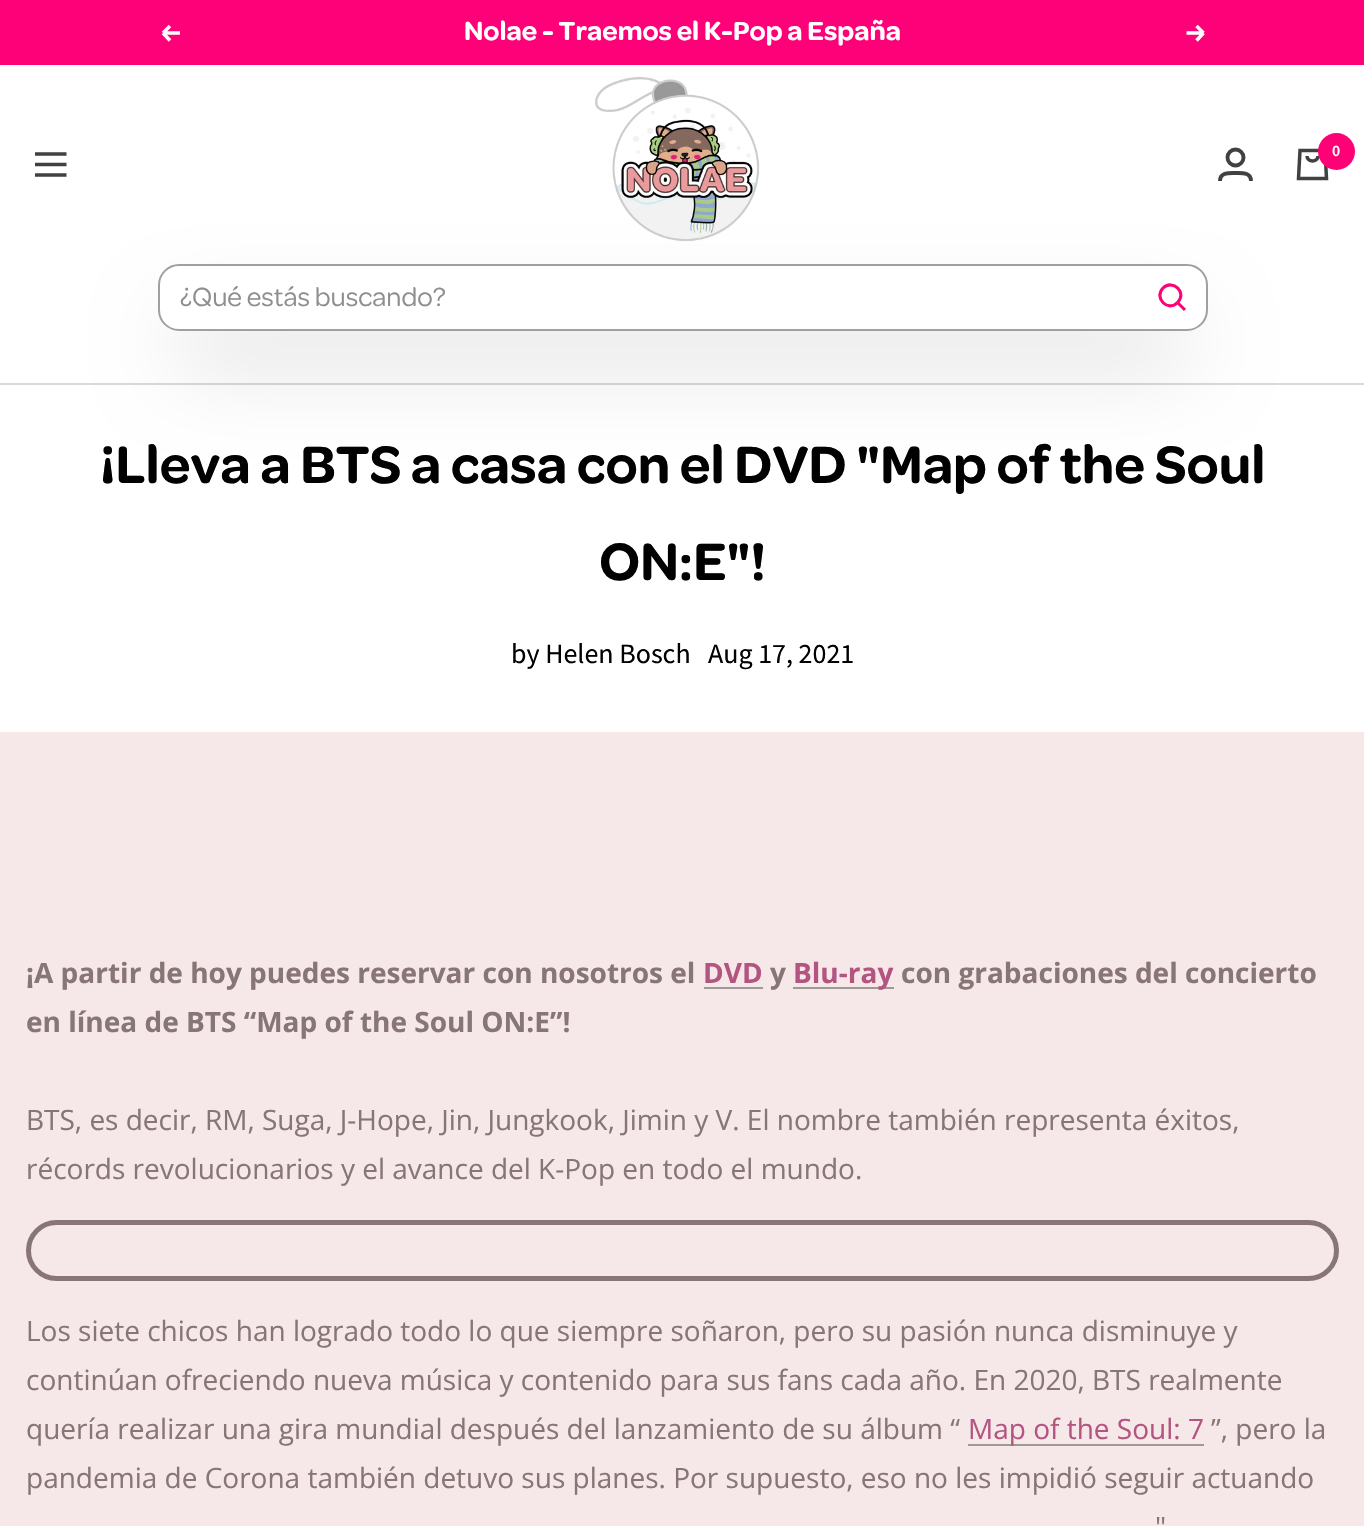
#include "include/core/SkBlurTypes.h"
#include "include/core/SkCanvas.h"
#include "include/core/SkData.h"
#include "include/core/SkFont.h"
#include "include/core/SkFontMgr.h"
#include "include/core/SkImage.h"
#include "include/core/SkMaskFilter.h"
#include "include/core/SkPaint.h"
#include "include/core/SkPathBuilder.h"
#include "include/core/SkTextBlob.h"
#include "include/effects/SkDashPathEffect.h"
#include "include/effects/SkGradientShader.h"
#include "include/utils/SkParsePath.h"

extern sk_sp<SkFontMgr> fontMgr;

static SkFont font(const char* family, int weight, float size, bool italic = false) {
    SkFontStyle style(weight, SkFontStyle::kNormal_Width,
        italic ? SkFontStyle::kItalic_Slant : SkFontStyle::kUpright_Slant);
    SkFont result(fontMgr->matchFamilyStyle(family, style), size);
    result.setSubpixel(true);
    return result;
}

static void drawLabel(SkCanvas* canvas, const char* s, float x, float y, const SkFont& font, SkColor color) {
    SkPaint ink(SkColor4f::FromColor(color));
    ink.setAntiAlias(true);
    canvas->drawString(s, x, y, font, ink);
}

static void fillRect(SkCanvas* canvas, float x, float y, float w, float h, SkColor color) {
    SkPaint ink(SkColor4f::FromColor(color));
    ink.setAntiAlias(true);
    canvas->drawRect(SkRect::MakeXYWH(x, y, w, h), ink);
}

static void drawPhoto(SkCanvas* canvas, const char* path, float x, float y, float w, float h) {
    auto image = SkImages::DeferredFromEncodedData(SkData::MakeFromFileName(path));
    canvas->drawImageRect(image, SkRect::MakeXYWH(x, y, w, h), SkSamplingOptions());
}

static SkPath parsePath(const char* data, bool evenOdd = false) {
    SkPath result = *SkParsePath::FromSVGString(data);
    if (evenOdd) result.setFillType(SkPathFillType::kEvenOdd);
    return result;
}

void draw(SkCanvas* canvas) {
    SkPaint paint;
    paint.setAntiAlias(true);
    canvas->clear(0xFFFFFFFF);
    fillRect(canvas, 0, 0, 1364, 65, 0xFFFE0077);
    paint.setStroke(true);
    paint.setStrokeWidth(3.5f);
    paint.setColor(0xFFFFFFFF);
    canvas->drawPath(parsePath("M180 33H163M163 33L170 40.5M163 33L170 26"), paint);
    SkFont font1 = font("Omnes", 600, 28);
    drawLabel(canvas, "Nolae - Traemos el K-Pop a España", 464, 40, font1, 0xFFFFFFFF);
    canvas->drawPath(parsePath("M1186.5 33H1203.5M1203.5 33L1196.5 40.5M1203.5 33L1196.5 26"), paint);
    fillRect(canvas, 0, 383, 1364, 2, 0xFFD9D9D9);
    paint.setColor(0xFF414141);
    canvas->drawPath(parsePath("M35 154H66.5M35 175H66.5ZM35 164.5H66.5Z"), paint);
    canvas->save();
    canvas->clipPath(parsePath("M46 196H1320V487H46ZM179 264H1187C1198.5 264 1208 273.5 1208 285V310C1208 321.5 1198.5 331 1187 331H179C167.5 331 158 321.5 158 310V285C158 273.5 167.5 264 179 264Z", true), true);
    paint.setStroke(false);
    paint.setColor(0x40000000);
    paint.setMaskFilter(SkMaskFilter::MakeBlur(kNormal_SkBlurStyle, 44));
    canvas->drawRect(SkRect::MakeXYWH(179, 329, 1008, 25), paint);
    paint.setMaskFilter(nullptr);
    canvas->restore();
    drawPhoto(canvas, "assets/img1.png", 595, 77, 165, 165);
    paint.setStroke(true);
    paint.setStrokeWidth(3.9f);
    paint.setColor(0xFF414141);
    canvas->drawCircle(1235.5f, 157.5f, 8, paint);
    canvas->drawPath(parsePath("M1220 181C1220 172 1229.5 173 1235.5 173C1241.5 173 1251 172 1251 181"), paint);
    paint.setStrokeWidth(3.5f);
    canvas->drawPath(parsePath("M1300 150.5H1325L1326.5 178.5H1298.5ZM1307 156C1307 162.5 1318 162.5 1318 156"), paint);
    paint.setStroke(false);
    paint.setColor(0xFFFE0177);
    canvas->drawCircle(1336.5f, 151.5f, 18.5f, paint);
    SkFont font2 = font("Source Sans Pro", 600, 16);
    drawLabel(canvas, "0", 1332, 156, font2, 0xFFFFFFFF);
    paint.setStroke(true);
    paint.setStrokeWidth(2);
    paint.setColor(0xFFA0A0A2);
    canvas->drawRoundRect(SkRect::MakeXYWH(159, 265, 1048, 65), 20, 20, paint);
    SkFont font3 = font("Omnes", 400, 28);
    drawLabel(canvas, "¿Qué estás buscando?", 180, 306, font3, 0xFF8E8E90);
    paint.setStrokeWidth(3.1f);
    paint.setColor(0xFFFE0177);
    canvas->drawPath(parsePath("M1177.5 302.5C1187.5 293 1173 278.5 1163 288C1153.5 298 1168 312.5 1177.5 302.5ZM1177.5 302.5L1185 310"), paint);
    SkFont font4 = font("Omnes", 600, 56);
    drawLabel(canvas, "¡Lleva a BTS a casa con el DVD \"Map of the Soul", 100, 483, font4, 0xFF010101);
    drawLabel(canvas, "ON:E\"!", 599, 580, font4, 0xFF010101);
    SkFont font5 = font("Source Sans Pro", 400, 28);
    drawLabel(canvas, "by Helen Bosch", 511, 663, font5, 0xFF010101);
    drawLabel(canvas, "Aug 17, 2021", 708, 663, font5, 0xFF010101);
    fillRect(canvas, 0, 732, 1364, 794, 0xFFF6E8E8);
    SkFont font6 = font("Open Sans", 700, 28);
    drawLabel(canvas, "¡A partir de hoy puedes reservar con nosotros el", 26, 983, font6, 0xFF887575);
    drawLabel(canvas, "DVD", 703, 983, font6, 0xFFB45581);
    fillRect(canvas, 704, 987, 59, 2, 0xFFA09797);
    drawLabel(canvas, "y", 770, 983, font6, 0xFF887575);
    fillRect(canvas, 793, 987, 101, 2, 0xFFA09797);
    drawLabel(canvas, "Blu-ray", 793, 983, font6, 0xFFB45581);
    drawLabel(canvas, "con grabaciones del concierto", 901, 983, font6, 0xFF887575);
    drawLabel(canvas, "en línea de BTS “Map of the Soul ON:E”!", 26, 1032, font6, 0xFF887575);
    SkFont font7 = font("Open Sans", 400, 28);
    drawLabel(canvas, "BTS, es decir, RM, Suga, J-Hope, Jin, Jungkook, Jimin y V. El nombre también representa éxitos,", 26, 1130, font7, 0xFF887575);
    drawLabel(canvas, "récords revolucionarios y el avance del K-Pop en todo el mundo.", 26, 1179, font7, 0xFF887575);
    paint.setStrokeWidth(5);
    paint.setColor(0xFF887575);
    canvas->drawRoundRect(SkRect::MakeXYWH(28.5f, 1222.5f, 1308, 56), 28, 28, paint);
    drawLabel(canvas, "Los siete chicos han logrado todo lo que siempre soñaron, pero su pasión nunca disminuye y", 26, 1341, font7, 0xFF887575);
    drawLabel(canvas, "continúan ofreciendo nueva música y contenido para sus fans cada año. En 2020, BTS realmente", 26, 1390, font7, 0xFF887575);
    drawLabel(canvas, "quería realizar una gira mundial después del lanzamiento de su álbum “", 26, 1439, font7, 0xFF887575);
    fillRect(canvas, 968, 1444, 236, 2, 0xFFA09797);
    drawLabel(canvas, "Map of the Soul: 7", 968, 1439, font7, 0xFFB45581);
    drawLabel(canvas, "”, pero la", 1211, 1439, font7, 0xFF887575);
    drawLabel(canvas, "pandemia de Corona también detuvo sus planes. Por supuesto, eso no les impidió seguir actuando", 26, 1488, font7, 0xFF887575);
    drawLabel(canvas, "\"", 1155, 1537, font7, 0xFF887575);
}
